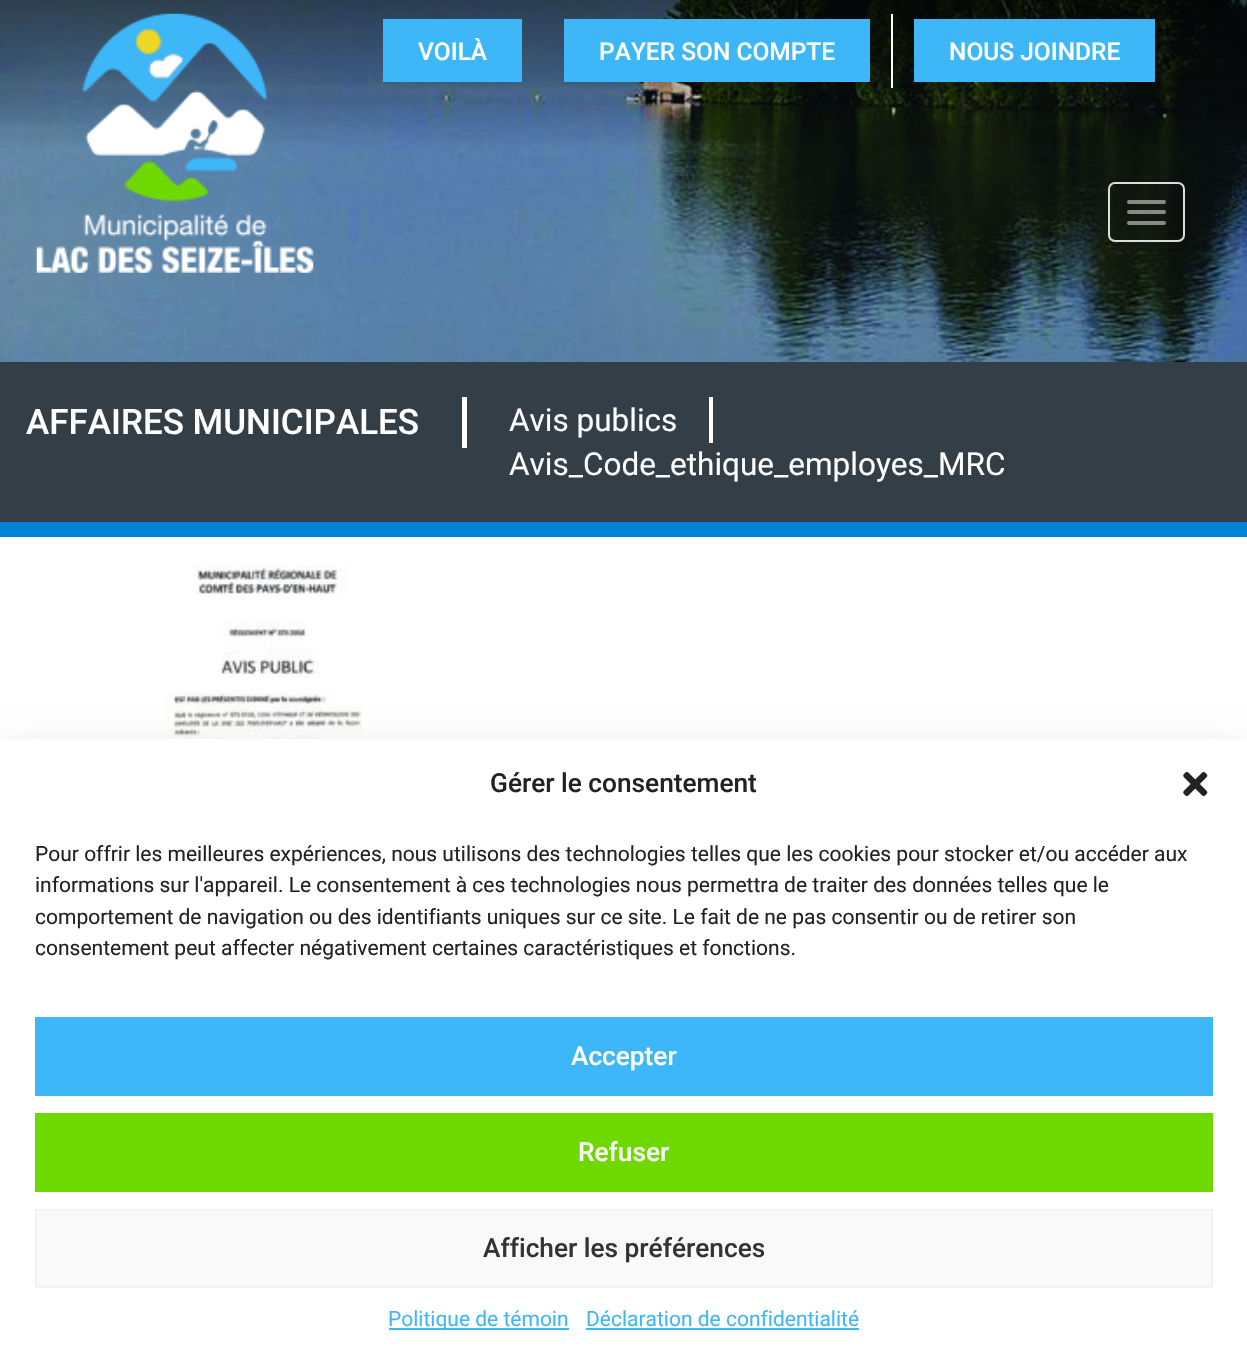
#include "include/core/SkBlurTypes.h"
#include "include/core/SkCanvas.h"
#include "include/core/SkData.h"
#include "include/core/SkFont.h"
#include "include/core/SkFontMgr.h"
#include "include/core/SkImage.h"
#include "include/core/SkMaskFilter.h"
#include "include/core/SkPaint.h"
#include "include/core/SkPathBuilder.h"
#include "include/core/SkTextBlob.h"
#include "include/effects/SkDashPathEffect.h"
#include "include/effects/SkGradientShader.h"
#include "include/utils/SkParsePath.h"

extern sk_sp<SkFontMgr> fontMgr;

static SkFont font(const char* family, int weight, float size, bool italic = false) {
    SkFontStyle style(weight, SkFontStyle::kNormal_Width,
        italic ? SkFontStyle::kItalic_Slant : SkFontStyle::kUpright_Slant);
    SkFont result(fontMgr->matchFamilyStyle(family, style), size);
    result.setSubpixel(true);
    return result;
}

static void drawLabel(SkCanvas* canvas, const char* s, float x, float y, const SkFont& font, SkColor color) {
    SkPaint ink(SkColor4f::FromColor(color));
    ink.setAntiAlias(true);
    canvas->drawString(s, x, y, font, ink);
}

static void fillRect(SkCanvas* canvas, float x, float y, float w, float h, SkColor color) {
    SkPaint ink(SkColor4f::FromColor(color));
    ink.setAntiAlias(true);
    canvas->drawRect(SkRect::MakeXYWH(x, y, w, h), ink);
}

static void fillRRect(SkCanvas* canvas, float x, float y, float w, float h, float radius, SkColor color) {
    SkPaint ink(SkColor4f::FromColor(color));
    ink.setAntiAlias(true);
    canvas->drawRoundRect(SkRect::MakeXYWH(x, y, w, h), radius, radius, ink);
}

static void drawPhoto(SkCanvas* canvas, const char* path, float x, float y, float w, float h) {
    auto image = SkImages::DeferredFromEncodedData(SkData::MakeFromFileName(path));
    canvas->drawImageRect(image, SkRect::MakeXYWH(x, y, w, h), SkSamplingOptions());
}

void draw(SkCanvas* canvas) {
    SkPaint paint;
    paint.setAntiAlias(true);
    canvas->clear(0xFFFFFFFF);
    drawPhoto(canvas, "assets/img1.png", 0, 0, 1247, 362);
    drawPhoto(canvas, "assets/img2.png", 36, 13, 278, 260);
    paint.setStroke(true);
    paint.setStrokeWidth(2);
    paint.setColor(0xFFDDDDDD);
    canvas->drawRoundRect(SkRect::MakeXYWH(1109, 183, 75, 58), 6, 6, paint);
    fillRRect(canvas, 1127, 200, 39, 4, 2, 0xFF888888);
    fillRRect(canvas, 1127, 210, 39, 4, 2, 0xFF888888);
    fillRRect(canvas, 1127, 221, 39, 4, 2, 0xFF888888);
    fillRect(canvas, 383, 19, 139, 63, 0xFF3EB7F9);
    SkFont font1 = font("Roboto", 500, 24.5f);
    drawLabel(canvas, "VOILÀ", 418, 60, font1, 0xFFFFFFFF);
    fillRect(canvas, 564, 19, 306, 63, 0xFF3EB7F9);
    drawLabel(canvas, "PAYER SON COMPTE", 599, 60, font1, 0xFFFFFFFF);
    fillRect(canvas, 891, 14, 2, 74, 0xFFFFFFFF);
    fillRect(canvas, 914, 19, 241, 63, 0xFF3EB7F9);
    drawLabel(canvas, "NOUS JOINDRE", 949, 60, font1, 0xFFFFFFFF);
    fillRect(canvas, 0, 362, 1247, 160, 0xFF333E46);
    fillRect(canvas, 0, 522, 1247, 15, 0xFF0083D7);
    fillRect(canvas, 462, 397, 5, 51, 0xFFFFFFFF);
    SkFont font2 = font("Roboto", 500, 35);
    drawLabel(canvas, "AFFAIRES MUNICIPALES", 26, 434, font2, 0xFFFFFFFF);
    fillRect(canvas, 709, 397, 4, 46, 0xFFFFFFFF);
    SkFont font3 = font("Roboto", 400, 31.5f);
    drawLabel(canvas, "Avis publics", 509, 431, font3, 0xFFFFFFFF);
    drawLabel(canvas, "Avis_Code_ethique_employes_MRC", 509, 475, font3, 0xFFFFFFFF);
    drawPhoto(canvas, "assets/img3.png", 156, 565, 225, 174);
    paint.setStroke(false);
    paint.setColor(0x30000000);
    paint.setMaskFilter(SkMaskFilter::MakeBlur(kNormal_SkBlurStyle, 17.5f));
    canvas->drawRect(SkRect::MakeXYWH(0, 756, 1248, 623), paint);
    paint.setMaskFilter(nullptr);
    fillRect(canvas, 0, 739, 1247, 621, 0xFFFFFFFF);
    SkFont font4 = font("Roboto", 500, 26.25f);
    drawLabel(canvas, "Gérer le consentement", 490, 792, font4, 0xFF222222);
    drawPhoto(canvas, "assets/img4.png", 1183, 772, 25, 24);
    SkFont font5 = font("Roboto", 400, 21);
    drawLabel(canvas, "Pour offrir les meilleures expériences, nous utilisons des technologies telles que les cookies pour stocker et/ou accéder aux", 35, 861, font5, 0xFF222222);
    drawLabel(canvas, "informations sur l'appareil. Le consentement à ces technologies nous permettra de traiter des données telles que le", 35, 892, font5, 0xFF222222);
    drawLabel(canvas, "comportement de navigation ou des identifiants uniques sur ce site. Le fait de ne pas consentir ou de retirer son", 35, 924, font5, 0xFF222222);
    drawLabel(canvas, "consentement peut affecter négativement certaines caractéristiques et fonctions.", 35, 955, font5, 0xFF222222);
    fillRect(canvas, 35, 1017, 1178, 79, 0xFF3EB7F9);
    drawLabel(canvas, "Accepter", 571, 1065, font4, 0xFFFFFFFF);
    fillRect(canvas, 35, 1113, 1178, 79, 0xFF6DD900);
    drawLabel(canvas, "Refuser", 578, 1161, font4, 0xFFFFFFFF);
    paint.setColor(0xFFF9F9F9);
    canvas->drawRect(SkRect::MakeXYWH(36, 1210, 1176, 77), paint);
    paint.setStroke(true);
    paint.setColor(0xFFF2F2F2);
    canvas->drawRect(SkRect::MakeXYWH(36, 1210, 1176, 77), paint);
    drawLabel(canvas, "Afficher les préférences", 483, 1257, font4, 0xFF333333);
    fillRect(canvas, 389, 1328, 180, 2, 0xFF3EB7F9);
    drawLabel(canvas, "Politique de témoin", 388, 1326, font5, 0xFF3EB7F9);
    drawLabel(canvas, "Déclaration de confidentialité", 586, 1326, font5, 0xFF3EB7F9);
    fillRect(canvas, 586, 1328, 273, 2, 0xFF3EB7F9);
}
